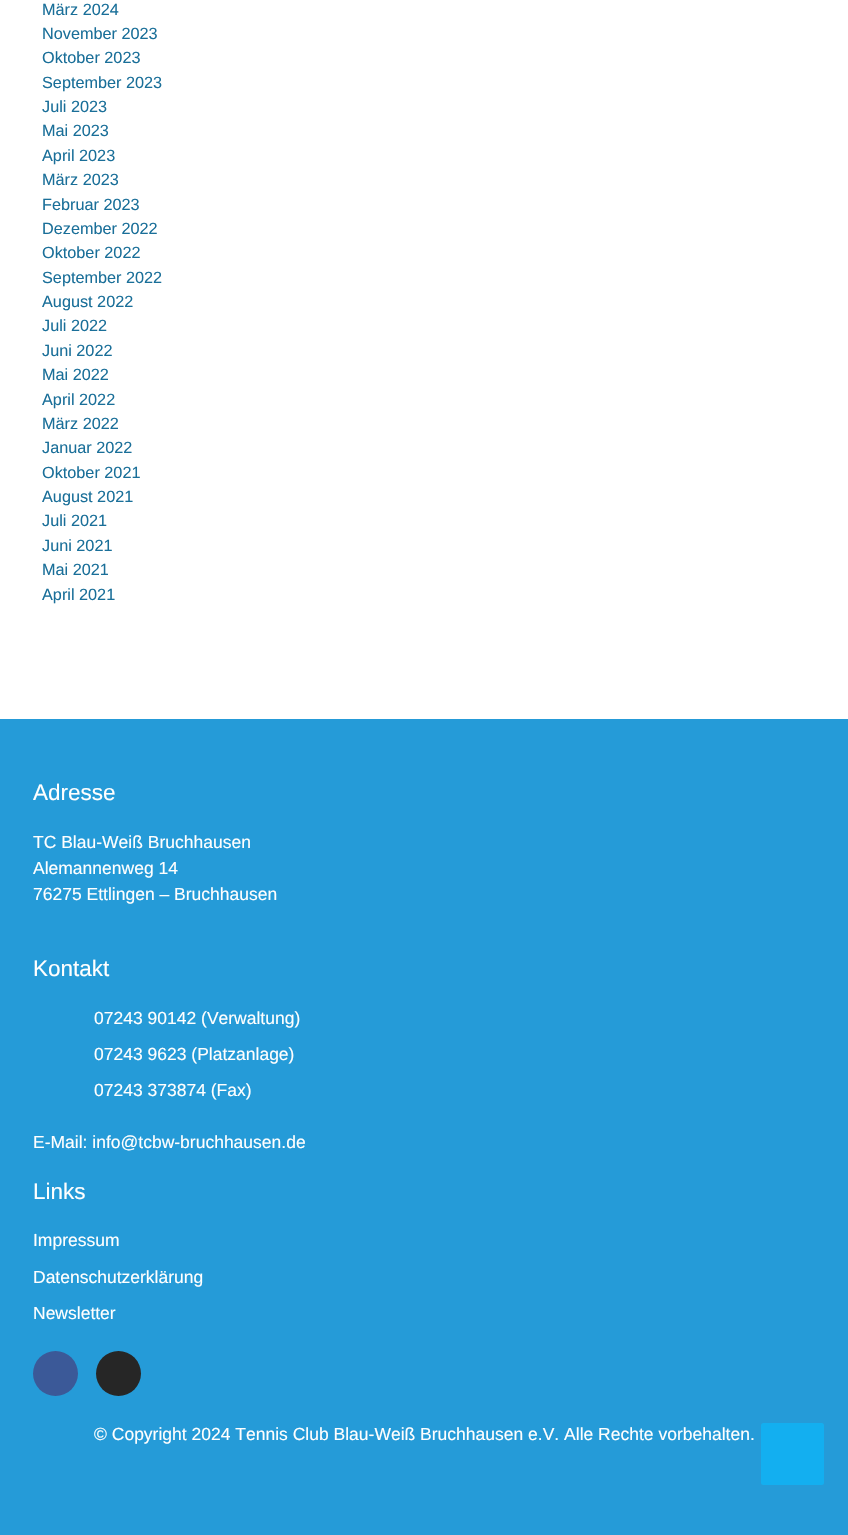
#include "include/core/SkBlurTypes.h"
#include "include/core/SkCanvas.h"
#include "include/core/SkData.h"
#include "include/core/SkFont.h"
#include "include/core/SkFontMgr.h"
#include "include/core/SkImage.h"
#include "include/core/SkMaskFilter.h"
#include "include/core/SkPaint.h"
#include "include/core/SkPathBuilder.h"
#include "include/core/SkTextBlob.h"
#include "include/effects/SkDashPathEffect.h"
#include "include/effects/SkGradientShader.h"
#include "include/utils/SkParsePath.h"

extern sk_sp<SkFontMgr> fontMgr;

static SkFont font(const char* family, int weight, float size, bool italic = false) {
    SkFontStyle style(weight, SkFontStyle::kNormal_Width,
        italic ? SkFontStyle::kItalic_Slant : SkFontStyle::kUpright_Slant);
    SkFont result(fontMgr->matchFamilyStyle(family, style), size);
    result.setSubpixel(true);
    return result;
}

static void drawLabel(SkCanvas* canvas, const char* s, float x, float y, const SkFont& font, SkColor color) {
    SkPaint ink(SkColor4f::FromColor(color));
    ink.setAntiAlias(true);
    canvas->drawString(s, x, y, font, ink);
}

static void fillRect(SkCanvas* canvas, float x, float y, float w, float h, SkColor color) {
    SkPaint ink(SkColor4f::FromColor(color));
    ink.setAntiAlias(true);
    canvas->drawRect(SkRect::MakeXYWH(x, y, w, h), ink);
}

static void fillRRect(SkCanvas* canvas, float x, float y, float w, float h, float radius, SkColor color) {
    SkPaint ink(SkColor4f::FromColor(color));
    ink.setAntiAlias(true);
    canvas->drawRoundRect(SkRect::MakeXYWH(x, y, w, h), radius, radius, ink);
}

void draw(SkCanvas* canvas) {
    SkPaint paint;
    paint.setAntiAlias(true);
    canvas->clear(0xFFFFFFFF);
    SkFont font1 = font("Liberation Sans", 400, 16.25f);
    drawLabel(canvas, "März 2024", 42, 15, font1, 0xFF1A6F99);
    drawLabel(canvas, "November 2023", 42, 39, font1, 0xFF1A6F99);
    drawLabel(canvas, "Oktober 2023", 42, 63, font1, 0xFF1A6F99);
    drawLabel(canvas, "September 2023", 42, 88, font1, 0xFF1A6F99);
    drawLabel(canvas, "Juli 2023", 42, 112, font1, 0xFF1A6F99);
    drawLabel(canvas, "Mai 2023", 42, 136, font1, 0xFF1A6F99);
    drawLabel(canvas, "April 2023", 42, 161, font1, 0xFF1A6F99);
    drawLabel(canvas, "März 2023", 42, 185, font1, 0xFF1A6F99);
    drawLabel(canvas, "Februar 2023", 42, 210, font1, 0xFF1A6F99);
    drawLabel(canvas, "Dezember 2022", 42, 234, font1, 0xFF1A6F99);
    drawLabel(canvas, "Oktober 2022", 42, 258, font1, 0xFF1A6F99);
    drawLabel(canvas, "September 2022", 42, 283, font1, 0xFF1A6F99);
    drawLabel(canvas, "August 2022", 42, 307, font1, 0xFF1A6F99);
    drawLabel(canvas, "Juli 2022", 42, 331, font1, 0xFF1A6F99);
    drawLabel(canvas, "Juni 2022", 42, 356, font1, 0xFF1A6F99);
    drawLabel(canvas, "Mai 2022", 42, 380, font1, 0xFF1A6F99);
    drawLabel(canvas, "April 2022", 42, 405, font1, 0xFF1A6F99);
    drawLabel(canvas, "März 2022", 42, 429, font1, 0xFF1A6F99);
    drawLabel(canvas, "Januar 2022", 42, 453, font1, 0xFF1A6F99);
    drawLabel(canvas, "Oktober 2021", 42, 478, font1, 0xFF1A6F99);
    drawLabel(canvas, "August 2021", 42, 502, font1, 0xFF1A6F99);
    drawLabel(canvas, "Juli 2021", 42, 526, font1, 0xFF1A6F99);
    drawLabel(canvas, "Juni 2021", 42, 551, font1, 0xFF1A6F99);
    drawLabel(canvas, "Mai 2021", 42, 575, font1, 0xFF1A6F99);
    drawLabel(canvas, "April 2021", 42, 600, font1, 0xFF1A6F99);
    fillRect(canvas, 0, 719, 848, 816, 0xFF259BD8);
    SkFont font2 = font("Liberation Sans", 400, 22.5f);
    drawLabel(canvas, "Adresse", 33, 800, font2, 0xFFFFFFFF);
    SkFont font3 = font("Liberation Sans", 400, 17.5f);
    drawLabel(canvas, "TC Blau-Weiß Bruchhausen", 33, 848, font3, 0xFFFFFFFF);
    drawLabel(canvas, "Alemannenweg 14", 33, 874, font3, 0xFFFFFFFF);
    drawLabel(canvas, "76275 Ettlingen – Bruchhausen", 33, 900, font3, 0xFFFFFFFF);
    drawLabel(canvas, "Kontakt", 33, 976, font2, 0xFFFFFFFF);
    drawLabel(canvas, "07243 90142 (Verwaltung)", 94, 1024, font3, 0xFFFFFFFF);
    drawLabel(canvas, "07243 9623 (Platzanlage)", 94, 1060, font3, 0xFFFFFFFF);
    drawLabel(canvas, "07243 373874 (Fax)", 94, 1096, font3, 0xFFFFFFFF);
    drawLabel(canvas, "E-Mail: info@tcbw-bruchhausen.de", 33, 1148, font3, 0xFFFFFFFF);
    drawLabel(canvas, "Links", 33, 1199, font2, 0xFFFFFFFF);
    drawLabel(canvas, "Impressum", 33, 1246, font3, 0xFFFFFFFF);
    drawLabel(canvas, "Datenschutzerklärung", 33, 1283, font3, 0xFFFFFFFF);
    drawLabel(canvas, "Newsletter", 33, 1319, font3, 0xFFFFFFFF);
    paint.setColor(0xFF3B5998);
    canvas->drawCircle(55.5f, 1373.5f, 22.5f, paint);
    paint.setColor(0xFF262626);
    canvas->drawCircle(118.5f, 1373.5f, 22.5f, paint);
    drawLabel(canvas, "© Copyright 2024 Tennis Club Blau-Weiß Bruchhausen e.V. Alle Rechte vorbehalten.", 94, 1440, font3, 0xFFFFFFFF);
    fillRRect(canvas, 761, 1423, 63, 62, 2.5f, 0xFF13AFF0);
}
